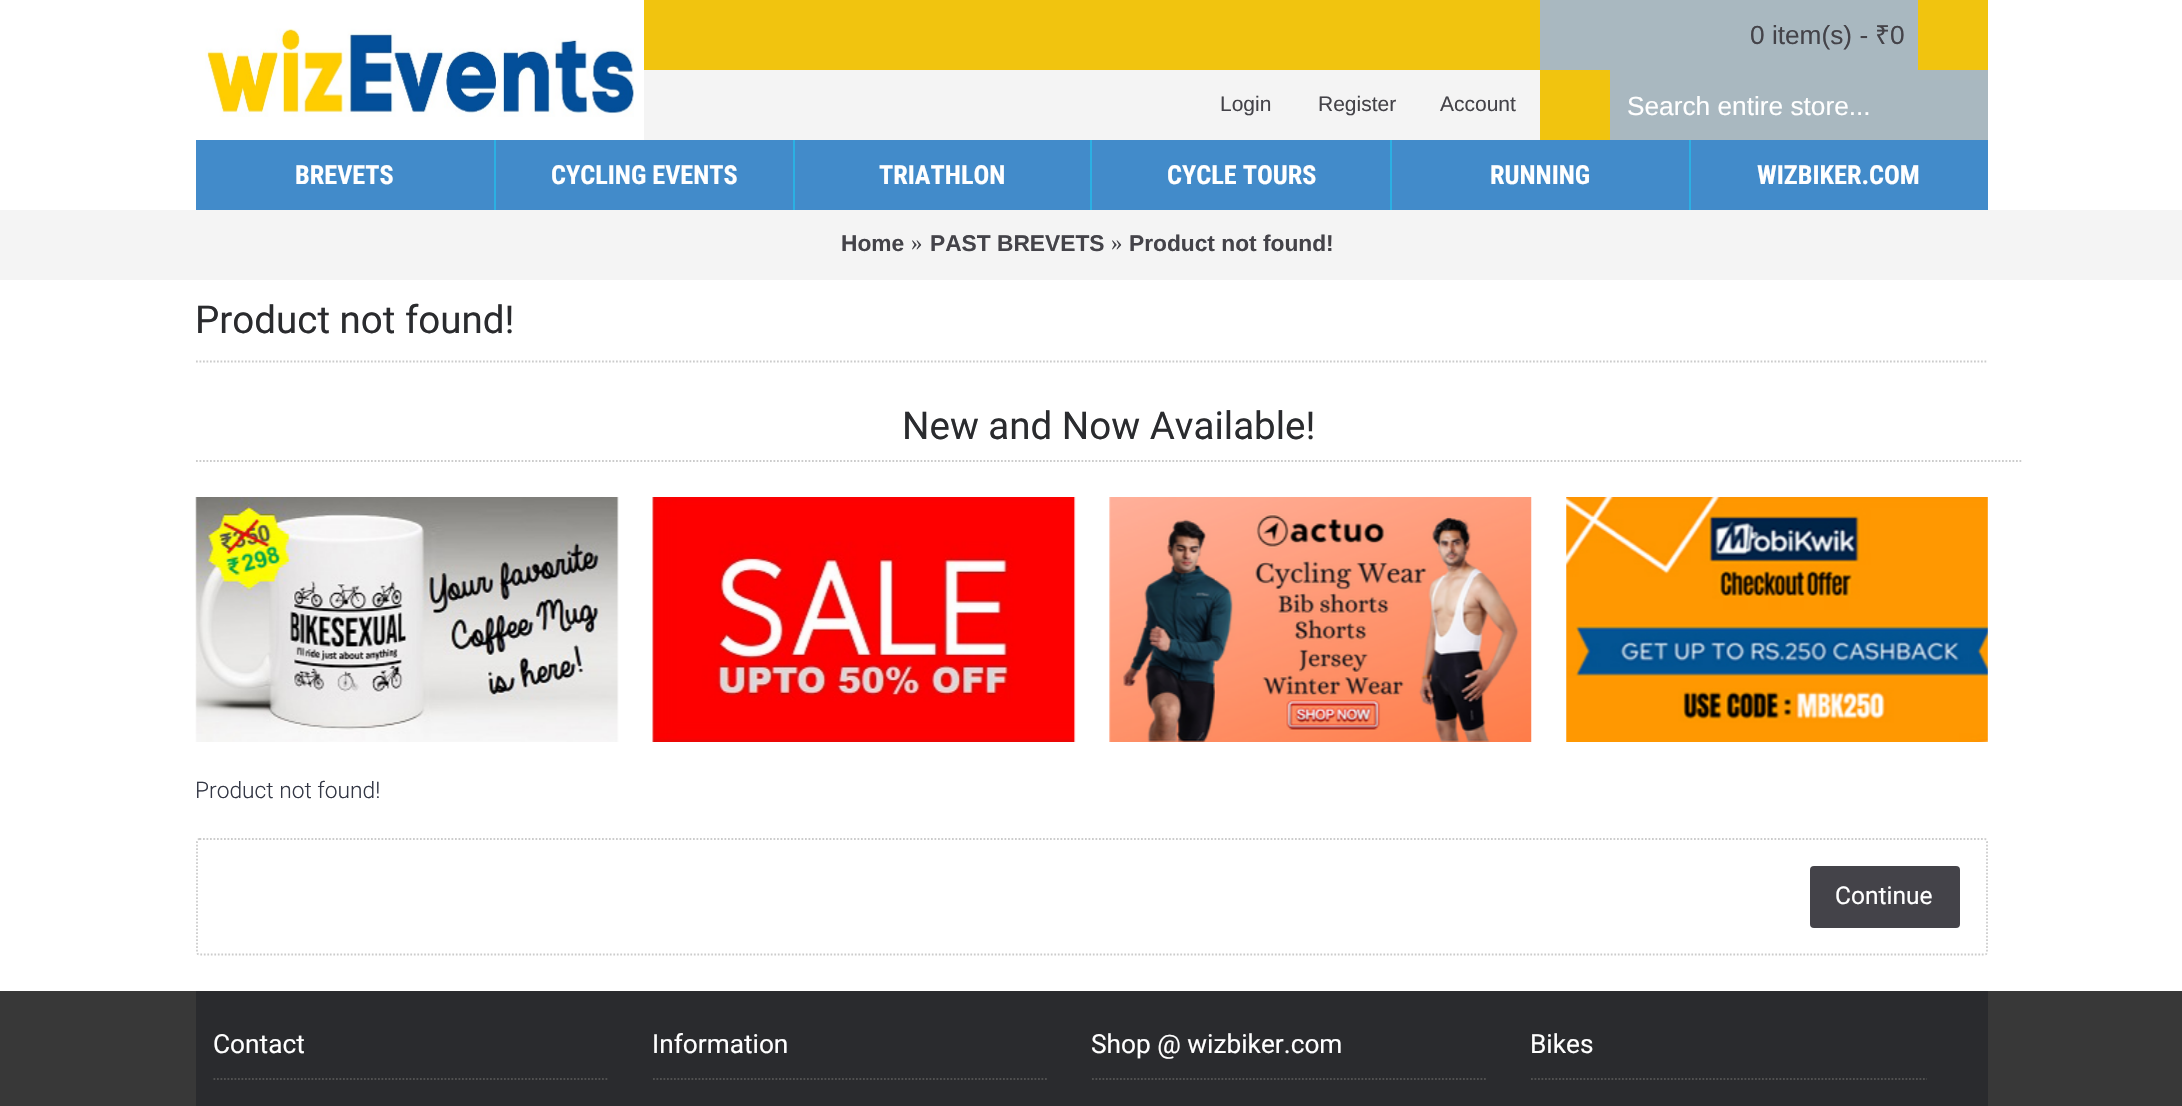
#include "include/core/SkBlurTypes.h"
#include "include/core/SkCanvas.h"
#include "include/core/SkData.h"
#include "include/core/SkFont.h"
#include "include/core/SkFontMgr.h"
#include "include/core/SkImage.h"
#include "include/core/SkMaskFilter.h"
#include "include/core/SkPaint.h"
#include "include/core/SkPathBuilder.h"
#include "include/core/SkTextBlob.h"
#include "include/effects/SkDashPathEffect.h"
#include "include/effects/SkGradientShader.h"
#include "include/utils/SkParsePath.h"

extern sk_sp<SkFontMgr> fontMgr;

static SkFont font(const char* family, int weight, float size, bool italic = false) {
    SkFontStyle style(weight, SkFontStyle::kNormal_Width,
        italic ? SkFontStyle::kItalic_Slant : SkFontStyle::kUpright_Slant);
    SkFont result(fontMgr->matchFamilyStyle(family, style), size);
    result.setSubpixel(true);
    return result;
}

static void drawLabel(SkCanvas* canvas, const char* s, float x, float y, const SkFont& font, SkColor color) {
    SkPaint ink(SkColor4f::FromColor(color));
    ink.setAntiAlias(true);
    canvas->drawString(s, x, y, font, ink);
}

static void fillRect(SkCanvas* canvas, float x, float y, float w, float h, SkColor color) {
    SkPaint ink(SkColor4f::FromColor(color));
    ink.setAntiAlias(true);
    canvas->drawRect(SkRect::MakeXYWH(x, y, w, h), ink);
}

static void fillRRect(SkCanvas* canvas, float x, float y, float w, float h, float radius, SkColor color) {
    SkPaint ink(SkColor4f::FromColor(color));
    ink.setAntiAlias(true);
    canvas->drawRoundRect(SkRect::MakeXYWH(x, y, w, h), radius, radius, ink);
}

static void drawPhoto(SkCanvas* canvas, const char* path, float x, float y, float w, float h) {
    auto image = SkImages::DeferredFromEncodedData(SkData::MakeFromFileName(path));
    canvas->drawImageRect(image, SkRect::MakeXYWH(x, y, w, h), SkSamplingOptions());
}

static SkPath parsePath(const char* data, bool evenOdd = false) {
    SkPath result = *SkParsePath::FromSVGString(data);
    if (evenOdd) result.setFillType(SkPathFillType::kEvenOdd);
    return result;
}

void draw(SkCanvas* canvas) {
    SkPaint paint;
    paint.setAntiAlias(true);
    canvas->clear(0xFFFFFFFF);
    fillRect(canvas, 644, 70, 896, 70, 0xFFF4F4F4);
    fillRect(canvas, 644, 0, 896, 70, 0xFFF1C40F);
    drawPhoto(canvas, "assets/img1.png", 205, 28, 429, 89);
    SkFont font1 = font("Liberation Sans", 400, 21);
    drawLabel(canvas, "Login", 1220, 111, font1, 0xFF444349);
    drawLabel(canvas, "Register", 1318, 111, font1, 0xFF444349);
    drawLabel(canvas, "Account", 1440, 111, font1, 0xFF444349);
    fillRect(canvas, 1540, 0, 378, 70, 0xFFA9B8C0);
    SkFont font2 = font("Liberation Sans", 400, 26.25f);
    drawLabel(canvas, "0 item(s) -", 1750, 44, font2, 0xFF444349);
    SkFont font3 = font("Noto Sans", 400, 26.25f);
    drawLabel(canvas, "₹", 1875, 44, font3, 0xFF444349);
    drawLabel(canvas, "0", 1890, 44, font2, 0xFF444349);
    fillRect(canvas, 1918, 0, 70, 70, 0xFFF1C40F);
    fillRect(canvas, 1540, 70, 70, 70, 0xFFF1C40F);
    fillRect(canvas, 1610, 70, 378, 70, 0xFFA9B8C0);
    drawLabel(canvas, "Search entire store...", 1627, 115, font2, 0xFFFFFFFF);
    fillRect(canvas, 196, 140, 298, 70, 0xFF428BCA);
    SkFont font4 = font("Roboto Condensed", 700, 26.25f);
    drawLabel(canvas, "BREVETS", 295, 184, font4, 0xFFFFFFFF);
    fillRect(canvas, 496, 140, 297, 70, 0xFF428BCA);
    fillRect(canvas, 494, 140, 2, 70, 0xFF2BB0E3);
    drawLabel(canvas, "CYCLING EVENTS", 551, 184, font4, 0xFFFFFFFF);
    fillRect(canvas, 795, 140, 295, 70, 0xFF428BCA);
    fillRect(canvas, 793, 140, 2, 70, 0xFF2BB0E3);
    drawLabel(canvas, "TRIATHLON", 879, 184, font4, 0xFFFFFFFF);
    fillRect(canvas, 1092, 140, 298, 70, 0xFF428BCA);
    fillRect(canvas, 1090, 140, 2, 70, 0xFF2BB0E3);
    drawLabel(canvas, "CYCLE TOURS", 1167, 184, font4, 0xFFFFFFFF);
    fillRect(canvas, 1392, 140, 297, 70, 0xFF428BCA);
    fillRect(canvas, 1390, 140, 2, 70, 0xFF2BB0E3);
    drawLabel(canvas, "RUNNING", 1490, 184, font4, 0xFFFFFFFF);
    fillRect(canvas, 1691, 140, 297, 70, 0xFF428BCA);
    fillRect(canvas, 1689, 140, 2, 70, 0xFF2BB0E3);
    drawLabel(canvas, "WIZBIKER.COM", 1757, 184, font4, 0xFFFFFFFF);
    fillRect(canvas, 0, 210, 2182, 70, 0xFFF4F4F4);
    SkFont font5 = font("Liberation Sans", 700, 22.75f);
    drawLabel(canvas, "Home", 841, 251, font5, 0xFF444349);
    SkFont font6 = font("Liberation Serif", 400, 22.75f);
    drawLabel(canvas, "»", 911, 250, font6, 0xFF444349);
    drawLabel(canvas, "PAST BREVETS", 930, 251, font5, 0xFF444349);
    drawLabel(canvas, "»", 1111, 250, font6, 0xFF444349);
    drawLabel(canvas, "Product not found!", 1129, 251, font5, 0xFF444349);
    paint.setStroke(true);
    paint.setStrokeWidth(1.8f);
    paint.setColor(0xFFCCCCCC);
    paint.setPathEffect(SkDashPathEffect::Make({{1.75f, 1.75f}}, 0));
    canvas->drawPath(parsePath("M196 361.5H1988"), paint);
    paint.setPathEffect(nullptr);
    SkFont font7 = font("Roboto", 400, 38.5f);
    drawLabel(canvas, "Product not found!", 195, 333, font7, 0xFF2A2B2E);
    paint.setPathEffect(SkDashPathEffect::Make({{1.75f, 1.75f}}, 0));
    canvas->drawPath(parsePath("M196 461H2023"), paint);
    paint.setPathEffect(nullptr);
    drawLabel(canvas, "New and Now Available!", 902, 439, font7, 0xFF2A2B2E);
    drawPhoto(canvas, "assets/img2.png", 195, 497, 424, 245);
    drawPhoto(canvas, "assets/img3.png", 652, 497, 424, 245);
    drawPhoto(canvas, "assets/img4.png", 1109, 497, 423, 245);
    drawPhoto(canvas, "assets/img5.png", 1566, 497, 422, 245);
    SkFont font8 = font("Roboto", 300, 22.75f);
    drawLabel(canvas, "Product not found!", 195, 798, font8, 0xFF333745);
    paint.setPathEffect(SkDashPathEffect::Make({{1.75f, 1.75f}}, 0));
    canvas->drawPath(parsePath("M199.5 839H1984.5C1986 839 1987 840.5 1987 842V952C1987 953.5 1986 954.5 1984.5 954.5H199.5C198 954.5 197 953.5 197 952V842C197 840.5 198 839 199.5 839Z"), paint);
    paint.setPathEffect(nullptr);
    fillRRect(canvas, 1810, 866, 150, 62, 4, 0xFF444349);
    SkFont font9 = font("Roboto", 400, 24.5f);
    drawLabel(canvas, "Continue", 1835, 904, font9, 0xFFFFFFFF);
    fillRect(canvas, 0, 991, 2182, 115, 0xFF383838);
    fillRect(canvas, 196, 991, 1792, 115, 0xFF2A2B2E);
    paint.setColor(0xFF505050);
    paint.setPathEffect(SkDashPathEffect::Make({{1.75f, 1.75f}}, 0));
    canvas->drawPath(parsePath("M213.5 1079H609"), paint);
    paint.setPathEffect(nullptr);
    SkFont font10 = font("Roboto", 400, 26.25f);
    drawLabel(canvas, "Contact", 213, 1053, font10, 0xFFFFFFFF);
    paint.setPathEffect(SkDashPathEffect::Make({{1.75f, 1.75f}}, 0));
    canvas->drawPath(parsePath("M653 1079H1048"), paint);
    paint.setPathEffect(nullptr);
    drawLabel(canvas, "Information", 652, 1053, font10, 0xFFFFFFFF);
    paint.setPathEffect(SkDashPathEffect::Make({{1.75f, 1.75f}}, 0));
    canvas->drawPath(parsePath("M1092 1079H1487.5"), paint);
    paint.setPathEffect(nullptr);
    drawLabel(canvas, "Shop @ wizbiker.com", 1091, 1053, font10, 0xFFFFFFFF);
    paint.setPathEffect(SkDashPathEffect::Make({{1.75f, 1.75f}}, 0));
    canvas->drawPath(parsePath("M1531 1079H1927"), paint);
    paint.setPathEffect(nullptr);
    drawLabel(canvas, "Bikes", 1530, 1053, font10, 0xFFFFFFFF);
}
